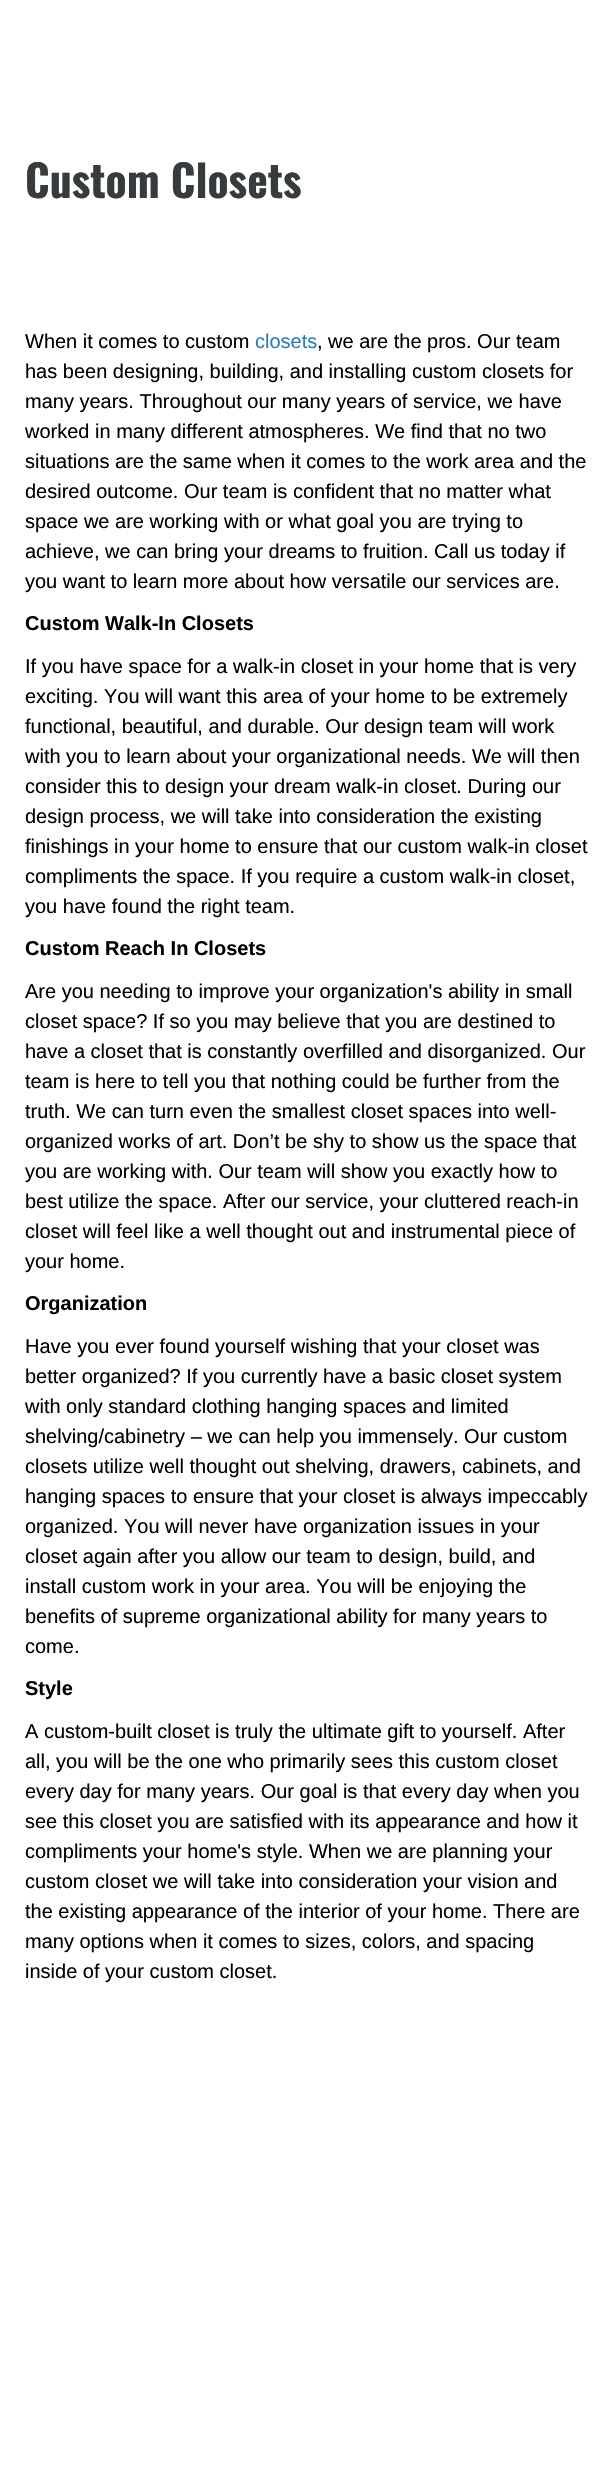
#include "include/core/SkBlurTypes.h"
#include "include/core/SkCanvas.h"
#include "include/core/SkData.h"
#include "include/core/SkFont.h"
#include "include/core/SkFontMgr.h"
#include "include/core/SkImage.h"
#include "include/core/SkMaskFilter.h"
#include "include/core/SkPaint.h"
#include "include/core/SkPathBuilder.h"
#include "include/core/SkTextBlob.h"
#include "include/effects/SkDashPathEffect.h"
#include "include/effects/SkGradientShader.h"
#include "include/utils/SkParsePath.h"

extern sk_sp<SkFontMgr> fontMgr;

static SkFont font(const char* family, int weight, float size, bool italic = false) {
    SkFontStyle style(weight, SkFontStyle::kNormal_Width,
        italic ? SkFontStyle::kItalic_Slant : SkFontStyle::kUpright_Slant);
    SkFont result(fontMgr->matchFamilyStyle(family, style), size);
    result.setSubpixel(true);
    return result;
}

static void drawLabel(SkCanvas* canvas, const char* s, float x, float y, const SkFont& font, SkColor color) {
    SkPaint ink(SkColor4f::FromColor(color));
    ink.setAntiAlias(true);
    canvas->drawString(s, x, y, font, ink);
}

void draw(SkCanvas* canvas) {
    SkPaint paint;
    paint.setAntiAlias(true);
    canvas->clear(0xFFFFFFFF);
    SkFont font1 = font("Oswald", 700, 43.75f);
    drawLabel(canvas, "Custom Closets", 25, 198, font1, 0xFF363B3E);
    SkFont font2 = font("Liberation Sans", 400, 20);
    drawLabel(canvas, "When it comes to custom", 25, 348, font2, 0xFF000000);
    drawLabel(canvas, "closets", 255, 348, font2, 0xFF2B7BB9);
    drawLabel(canvas, ", we are the pros. Our team", 317, 348, font2, 0xFF000000);
    drawLabel(canvas, "has been designing, building, and installing custom closets for", 25, 378, font2, 0xFF000000);
    drawLabel(canvas, "many years. Throughout our many years of service, we have", 25, 408, font2, 0xFF000000);
    drawLabel(canvas, "worked in many different atmospheres. We find that no two", 25, 438, font2, 0xFF000000);
    drawLabel(canvas, "situations are the same when it comes to the work area and the", 25, 468, font2, 0xFF000000);
    drawLabel(canvas, "desired outcome. Our team is confident that no matter what", 25, 498, font2, 0xFF000000);
    drawLabel(canvas, "space we are working with or what goal you are trying to", 25, 528, font2, 0xFF000000);
    drawLabel(canvas, "achieve, we can bring your dreams to fruition. Call us today if", 25, 558, font2, 0xFF000000);
    drawLabel(canvas, "you want to learn more about how versatile our services are.", 25, 588, font2, 0xFF000000);
    SkFont font3 = font("Liberation Sans", 700, 20);
    drawLabel(canvas, "Custom Walk-In Closets", 25, 630, font3, 0xFF000000);
    drawLabel(canvas, "If you have space for a walk-in closet in your home that is very", 25, 673, font2, 0xFF000000);
    drawLabel(canvas, "exciting. You will want this area of your home to be extremely", 25, 703, font2, 0xFF000000);
    drawLabel(canvas, "functional, beautiful, and durable. Our design team will work", 25, 733, font2, 0xFF000000);
    drawLabel(canvas, "with you to learn about your organizational needs. We will then", 25, 763, font2, 0xFF000000);
    drawLabel(canvas, "consider this to design your dream walk-in closet. During our", 25, 793, font2, 0xFF000000);
    drawLabel(canvas, "design process, we will take into consideration the existing", 25, 823, font2, 0xFF000000);
    drawLabel(canvas, "finishings in your home to ensure that our custom walk-in closet", 25, 853, font2, 0xFF000000);
    drawLabel(canvas, "compliments the space. If you require a custom walk-in closet,", 25, 883, font2, 0xFF000000);
    drawLabel(canvas, "you have found the right team.", 25, 913, font2, 0xFF000000);
    drawLabel(canvas, "Custom Reach In Closets", 25, 955, font3, 0xFF000000);
    drawLabel(canvas, "Are you needing to improve your organization's ability in small", 25, 998, font2, 0xFF000000);
    drawLabel(canvas, "closet space? If so you may believe that you are destined to", 25, 1028, font2, 0xFF000000);
    drawLabel(canvas, "have a closet that is constantly overfilled and disorganized. Our", 25, 1058, font2, 0xFF000000);
    drawLabel(canvas, "team is here to tell you that nothing could be further from the", 25, 1088, font2, 0xFF000000);
    drawLabel(canvas, "truth. We can turn even the smallest closet spaces into well-", 25, 1118, font2, 0xFF000000);
    drawLabel(canvas, "organized works of art. Don’t be shy to show us the space that", 25, 1148, font2, 0xFF000000);
    drawLabel(canvas, "you are working with. Our team will show you exactly how to", 25, 1178, font2, 0xFF000000);
    drawLabel(canvas, "best utilize the space. After our service, your cluttered reach-in", 25, 1208, font2, 0xFF000000);
    drawLabel(canvas, "closet will feel like a well thought out and instrumental piece of", 25, 1238, font2, 0xFF000000);
    drawLabel(canvas, "your home.", 25, 1268, font2, 0xFF000000);
    drawLabel(canvas, "Organization", 25, 1310, font3, 0xFF000000);
    drawLabel(canvas, "Have you ever found yourself wishing that your closet was", 25, 1353, font2, 0xFF000000);
    drawLabel(canvas, "better organized? If you currently have a basic closet system", 25, 1383, font2, 0xFF000000);
    drawLabel(canvas, "with only standard clothing hanging spaces and limited", 25, 1413, font2, 0xFF000000);
    drawLabel(canvas, "shelving/cabinetry – we can help you immensely. Our custom", 25, 1443, font2, 0xFF000000);
    drawLabel(canvas, "closets utilize well thought out shelving, drawers, cabinets, and", 25, 1473, font2, 0xFF000000);
    drawLabel(canvas, "hanging spaces to ensure that your closet is always impeccably", 25, 1503, font2, 0xFF000000);
    drawLabel(canvas, "organized. You will never have organization issues in your", 25, 1533, font2, 0xFF000000);
    drawLabel(canvas, "closet again after you allow our team to design, build, and", 25, 1563, font2, 0xFF000000);
    drawLabel(canvas, "install custom work in your area. You will be enjoying the", 25, 1593, font2, 0xFF000000);
    drawLabel(canvas, "benefits of supreme organizational ability for many years to", 25, 1623, font2, 0xFF000000);
    drawLabel(canvas, "come.", 25, 1653, font2, 0xFF000000);
    drawLabel(canvas, "Style", 25, 1695, font3, 0xFF000000);
    drawLabel(canvas, "A custom-built closet is truly the ultimate gift to yourself. After", 25, 1738, font2, 0xFF000000);
    drawLabel(canvas, "all, you will be the one who primarily sees this custom closet", 25, 1768, font2, 0xFF000000);
    drawLabel(canvas, "every day for many years. Our goal is that every day when you", 25, 1798, font2, 0xFF000000);
    drawLabel(canvas, "see this closet you are satisfied with its appearance and how it", 25, 1828, font2, 0xFF000000);
    drawLabel(canvas, "compliments your home's style. When we are planning your", 25, 1858, font2, 0xFF000000);
    drawLabel(canvas, "custom closet we will take into consideration your vision and", 25, 1888, font2, 0xFF000000);
    drawLabel(canvas, "the existing appearance of the interior of your home. There are", 25, 1918, font2, 0xFF000000);
    drawLabel(canvas, "many options when it comes to sizes, colors, and spacing", 25, 1948, font2, 0xFF000000);
    drawLabel(canvas, "inside of your custom closet.", 25, 1978, font2, 0xFF000000);
}
